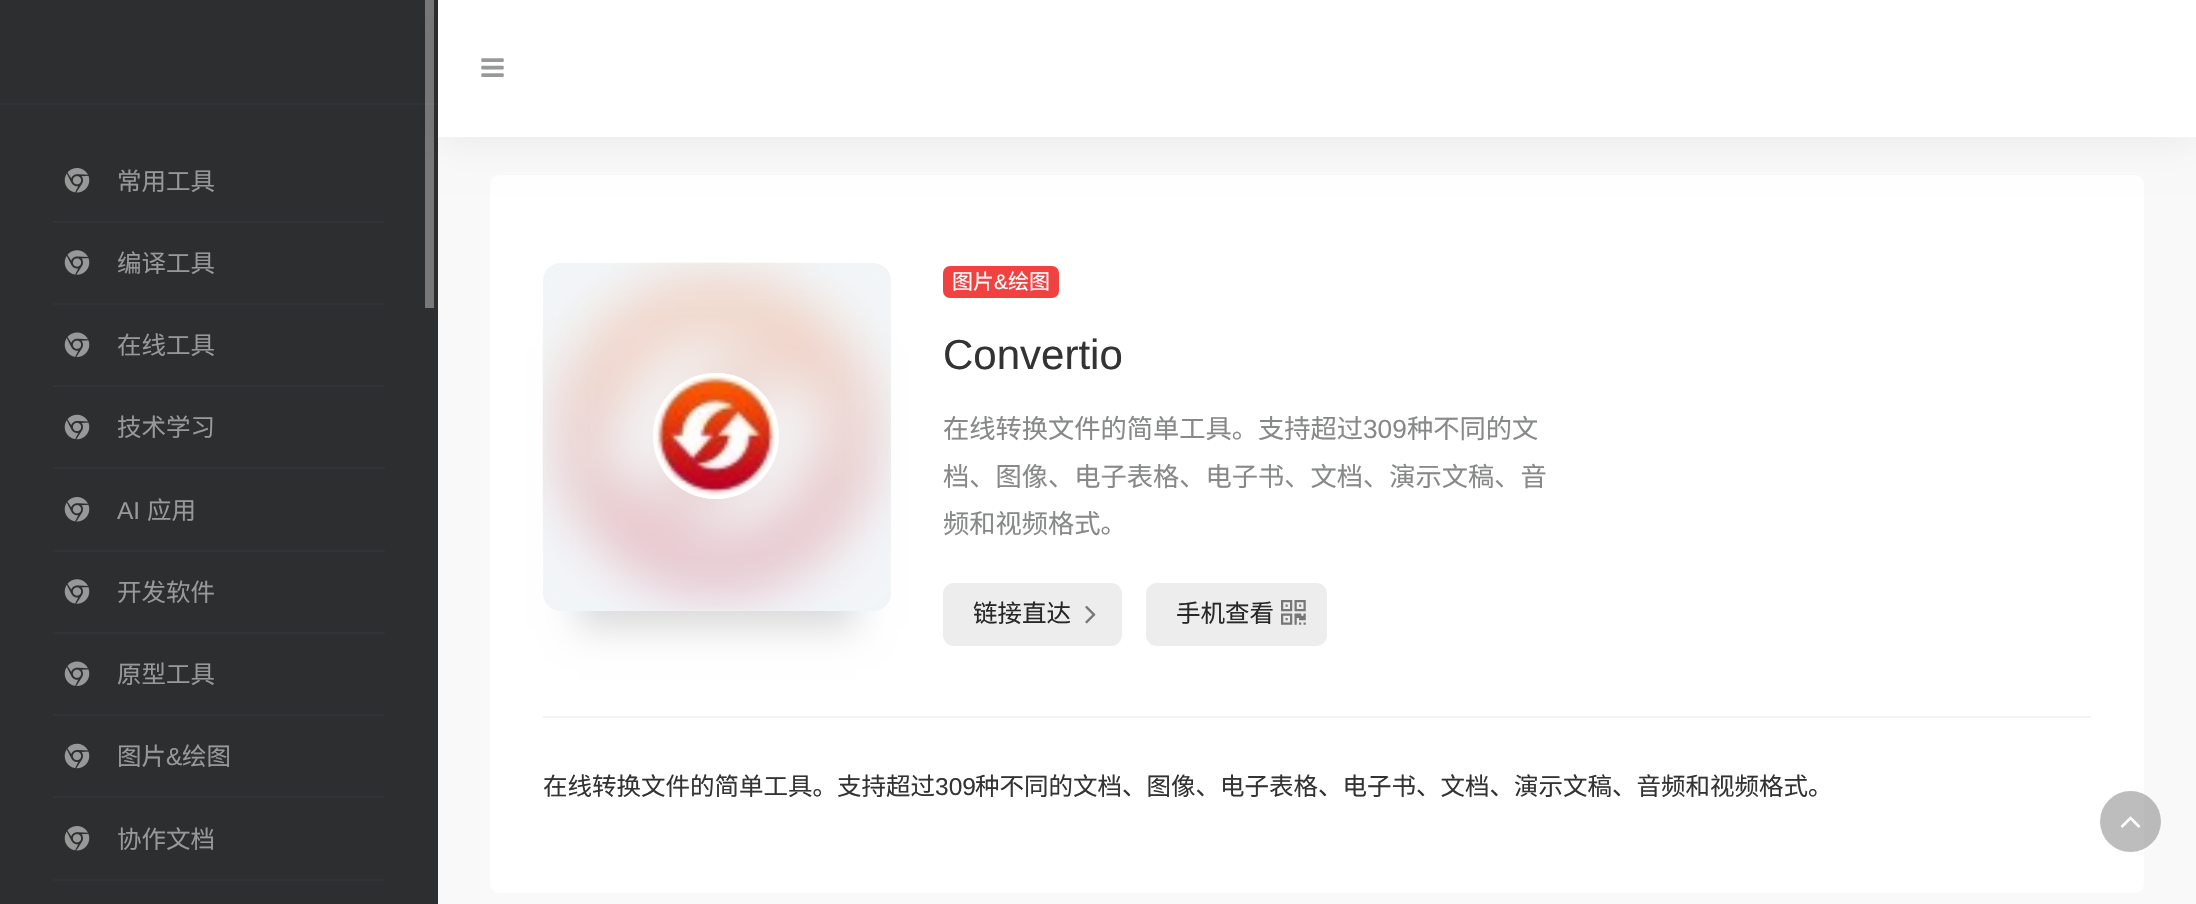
#include "include/core/SkBlurTypes.h"
#include "include/core/SkCanvas.h"
#include "include/core/SkData.h"
#include "include/core/SkFont.h"
#include "include/core/SkFontMgr.h"
#include "include/core/SkImage.h"
#include "include/core/SkMaskFilter.h"
#include "include/core/SkPaint.h"
#include "include/core/SkPathBuilder.h"
#include "include/core/SkTextBlob.h"
#include "include/effects/SkDashPathEffect.h"
#include "include/effects/SkGradientShader.h"
#include "include/utils/SkParsePath.h"

extern sk_sp<SkFontMgr> fontMgr;

static SkFont font(const char* family, int weight, float size, bool italic = false) {
    SkFontStyle style(weight, SkFontStyle::kNormal_Width,
        italic ? SkFontStyle::kItalic_Slant : SkFontStyle::kUpright_Slant);
    SkFont result(fontMgr->matchFamilyStyle(family, style), size);
    result.setSubpixel(true);
    return result;
}

static void drawLabel(SkCanvas* canvas, const char* s, float x, float y, const SkFont& font, SkColor color) {
    SkPaint ink(SkColor4f::FromColor(color));
    ink.setAntiAlias(true);
    canvas->drawString(s, x, y, font, ink);
}

static void fillRect(SkCanvas* canvas, float x, float y, float w, float h, SkColor color) {
    SkPaint ink(SkColor4f::FromColor(color));
    ink.setAntiAlias(true);
    canvas->drawRect(SkRect::MakeXYWH(x, y, w, h), ink);
}

static void fillRRect(SkCanvas* canvas, float x, float y, float w, float h, float radius, SkColor color) {
    SkPaint ink(SkColor4f::FromColor(color));
    ink.setAntiAlias(true);
    canvas->drawRoundRect(SkRect::MakeXYWH(x, y, w, h), radius, radius, ink);
}

static void drawPhoto(SkCanvas* canvas, const char* path, float x, float y, float w, float h) {
    auto image = SkImages::DeferredFromEncodedData(SkData::MakeFromFileName(path));
    canvas->drawImageRect(image, SkRect::MakeXYWH(x, y, w, h), SkSamplingOptions());
}

void draw(SkCanvas* canvas) {
    SkPaint paint;
    paint.setAntiAlias(true);
    canvas->clear(0xFFF9F9F9);
    fillRect(canvas, 0, 0, 438, 904, 0xFF2C2E2F);
    fillRect(canvas, 425, 0, 9, 308, 0xFF787879);
    fillRect(canvas, 0, 103, 438, 2, 0xFF313437);
    fillRect(canvas, 425, 103, 9, 2, 0xFF7A7B7C);
    fillRect(canvas, 53, 221, 332, 2, 0xFF313437);
    drawPhoto(canvas, "assets/img1.png", 64, 168, 26, 25);
    SkFont font1 = font("Noto Sans CJK SC", 400, 24.5f);
    drawLabel(canvas, "常用工具", 117, 190, font1, 0xFF979898);
    fillRect(canvas, 53, 303, 332, 2, 0xFF313437);
    drawPhoto(canvas, "assets/img2.png", 64, 250, 26, 25);
    drawLabel(canvas, "编译工具", 117, 272, font1, 0xFF979898);
    fillRect(canvas, 53, 385, 332, 2, 0xFF313437);
    drawPhoto(canvas, "assets/img3.png", 64, 332, 26, 25);
    drawLabel(canvas, "在线工具", 117, 354, font1, 0xFF979898);
    fillRect(canvas, 53, 467, 332, 2, 0xFF313437);
    drawPhoto(canvas, "assets/img4.png", 64, 414, 26, 26);
    drawLabel(canvas, "技术学习", 117, 436, font1, 0xFF979898);
    fillRect(canvas, 53, 550, 332, 2, 0xFF313437);
    drawPhoto(canvas, "assets/img1.png", 64, 497, 26, 25);
    SkFont font2 = font("Liberation Sans", 400, 24.5f);
    drawLabel(canvas, "AI", 117, 519, font2, 0xFF979898);
    drawLabel(canvas, "应用", 147, 519, font1, 0xFF979898);
    fillRect(canvas, 53, 632, 332, 2, 0xFF313437);
    drawPhoto(canvas, "assets/img2.png", 64, 579, 26, 25);
    drawLabel(canvas, "开发软件", 117, 601, font1, 0xFF979898);
    fillRect(canvas, 53, 714, 332, 2, 0xFF313437);
    drawPhoto(canvas, "assets/img3.png", 64, 661, 26, 25);
    drawLabel(canvas, "原型工具", 117, 683, font1, 0xFF979898);
    fillRect(canvas, 53, 796, 332, 2, 0xFF313437);
    drawPhoto(canvas, "assets/img4.png", 64, 743, 26, 26);
    drawLabel(canvas, "图片", 117, 765, font1, 0xFF979898);
    drawLabel(canvas, "&", 166, 765, font2, 0xFF979898);
    drawLabel(canvas, "绘图", 182, 765, font1, 0xFF979898);
    fillRect(canvas, 53, 879, 332, 2, 0xFF313437);
    drawPhoto(canvas, "assets/img1.png", 64, 826, 26, 25);
    drawLabel(canvas, "协作文档", 117, 848, font1, 0xFF979898);
    fillRRect(canvas, 490, 175, 1654, 718, 9, 0xFFFFFFFF);
    paint.setColor(0x0D000000);
    paint.setMaskFilter(SkMaskFilter::MakeBlur(kNormal_SkBlurStyle, 17.5f));
    canvas->drawRect(SkRect::MakeXYWH(438, 9, 1758, 136), paint);
    paint.setMaskFilter(nullptr);
    fillRect(canvas, 438, 0, 1758, 137, 0xFFFFFFFF);
    drawPhoto(canvas, "assets/img5.png", 481, 58, 23, 19);
    paint.setColor(0x26000000);
    paint.setMaskFilter(SkMaskFilter::MakeBlur(kNormal_SkBlurStyle, 17.5f));
    canvas->drawRect(SkRect::MakeXYWH(578, 350, 278, 278), paint);
    paint.setMaskFilter(nullptr);
    fillRRect(canvas, 543, 263, 348, 348, 18, 0xFFF1F5F8);
    drawPhoto(canvas, "assets/img6.png", 542, 262, 349, 349);
    paint.setColor(0xFFFFFFFF);
    canvas->drawCircle(716, 436, 63, paint);
    paint.setStroke(true);
    paint.setStrokeWidth(4);
    paint.setColor(0xE6FFFFFF);
    canvas->drawCircle(716, 436, 61, paint);
    drawPhoto(canvas, "assets/img7.png", 656, 376, 119, 119);
    fillRRect(canvas, 943, 266, 116, 32, 7, 0xFFF14141);
    SkFont font3 = font("Noto Sans CJK SC", 400, 21);
    drawLabel(canvas, "图片", 952, 289, font3, 0xFFFFFFFF);
    SkFont font4 = font("Liberation Sans", 400, 21);
    drawLabel(canvas, "&", 994, 289, font4, 0xFFFFFFFF);
    drawLabel(canvas, "绘图", 1008, 289, font3, 0xFFFFFFFF);
    SkFont font5 = font("Liberation Sans", 400, 42);
    drawLabel(canvas, "Convertio", 943, 369, font5, 0xFF333333);
    SkFont font6 = font("Noto Sans CJK SC", 400, 26.25f);
    drawLabel(canvas, "在线转换文件的简单工具。支持超过", 943, 438, font6, 0xFF878888);
    SkFont font7 = font("Liberation Sans", 400, 26.25f);
    drawLabel(canvas, "309", 1363, 438, font7, 0xFF878888);
    drawLabel(canvas, "种不同的文", 1407, 438, font6, 0xFF878888);
    drawLabel(canvas, "档、图像、电子表格、电子书、文档、演示文稿、音", 943, 486, font6, 0xFF878888);
    drawLabel(canvas, "频和视频格式。", 943, 533, font6, 0xFF878888);
    fillRRect(canvas, 943, 583, 179, 63, 11, 0xFFEDEDED);
    drawLabel(canvas, "链接直达", 973, 622, font1, 0xFF282828);
    drawPhoto(canvas, "assets/img8.png", 1085, 605, 11, 19);
    fillRRect(canvas, 1146, 583, 181, 63, 11, 0xFFEDEDED);
    drawLabel(canvas, "手机查看", 1176, 622, font1, 0xFF282828);
    drawPhoto(canvas, "assets/img9.png", 1281, 600, 25, 25);
    fillRect(canvas, 543, 716, 1548, 2, 0xFFF3F3F3);
    drawLabel(canvas, "在线转换文件的简单工具。支持超过", 543, 795, font1, 0xFF333333);
    drawLabel(canvas, "309", 935, 795, font2, 0xFF333333);
    drawLabel(canvas, "种不同的文档、图像、电子表格、电子书、文档、演示文稿、音频和视频格式。", 975, 795, font1, 0xFF333333);
    paint.setStroke(false);
    paint.setColor(0x807B7B7B);
    canvas->drawCircle(2130.5f, 821.5f, 30.5f, paint);
    drawPhoto(canvas, "assets/img10.png", 2120, 816, 21, 12);
}
